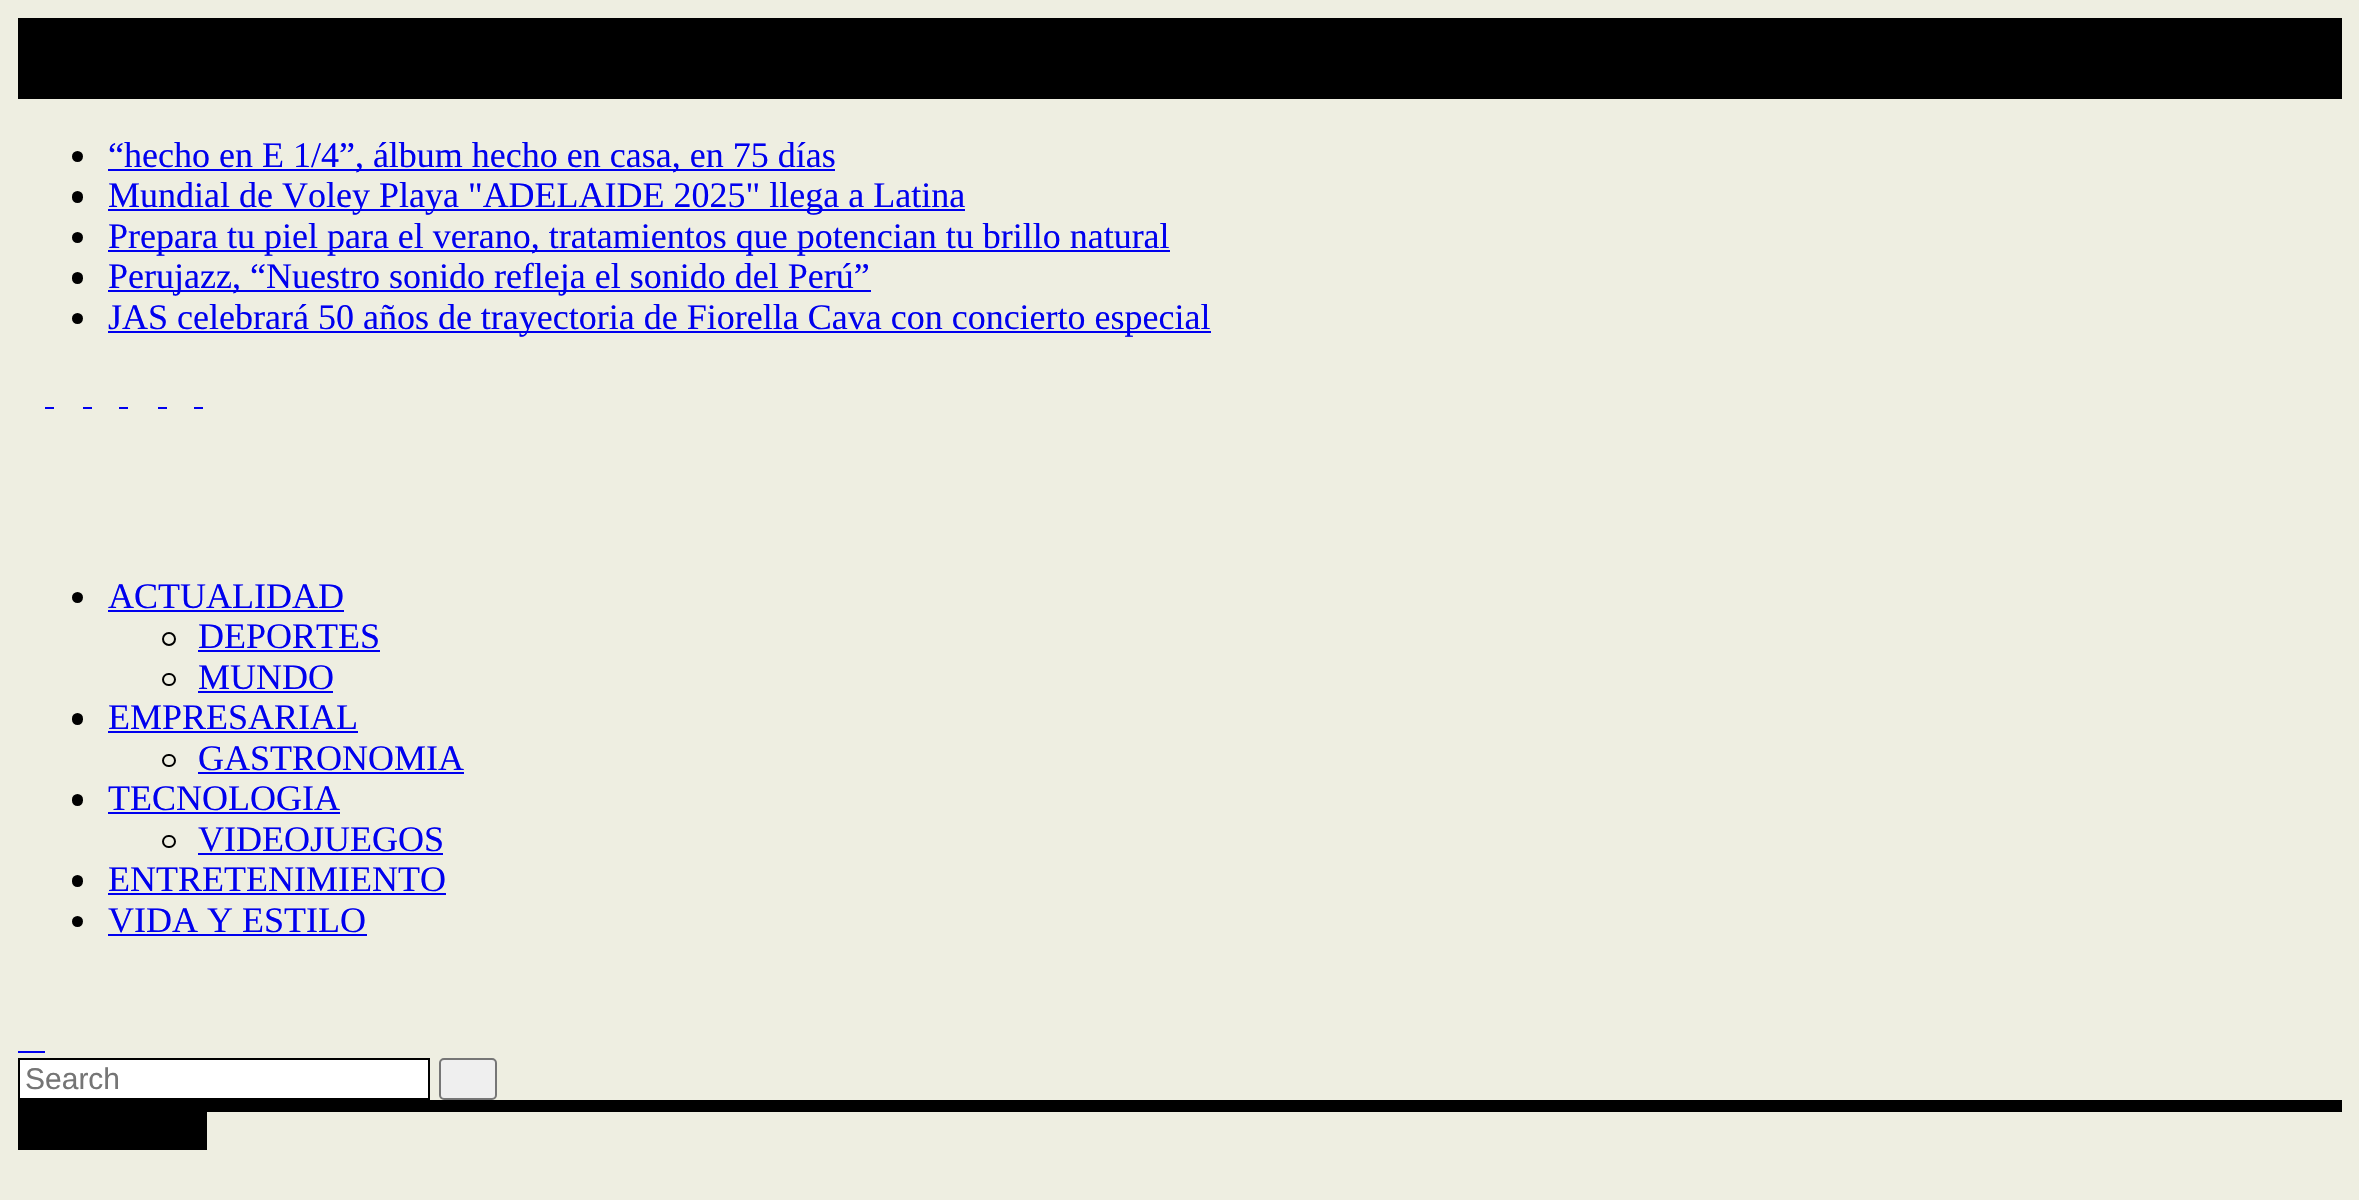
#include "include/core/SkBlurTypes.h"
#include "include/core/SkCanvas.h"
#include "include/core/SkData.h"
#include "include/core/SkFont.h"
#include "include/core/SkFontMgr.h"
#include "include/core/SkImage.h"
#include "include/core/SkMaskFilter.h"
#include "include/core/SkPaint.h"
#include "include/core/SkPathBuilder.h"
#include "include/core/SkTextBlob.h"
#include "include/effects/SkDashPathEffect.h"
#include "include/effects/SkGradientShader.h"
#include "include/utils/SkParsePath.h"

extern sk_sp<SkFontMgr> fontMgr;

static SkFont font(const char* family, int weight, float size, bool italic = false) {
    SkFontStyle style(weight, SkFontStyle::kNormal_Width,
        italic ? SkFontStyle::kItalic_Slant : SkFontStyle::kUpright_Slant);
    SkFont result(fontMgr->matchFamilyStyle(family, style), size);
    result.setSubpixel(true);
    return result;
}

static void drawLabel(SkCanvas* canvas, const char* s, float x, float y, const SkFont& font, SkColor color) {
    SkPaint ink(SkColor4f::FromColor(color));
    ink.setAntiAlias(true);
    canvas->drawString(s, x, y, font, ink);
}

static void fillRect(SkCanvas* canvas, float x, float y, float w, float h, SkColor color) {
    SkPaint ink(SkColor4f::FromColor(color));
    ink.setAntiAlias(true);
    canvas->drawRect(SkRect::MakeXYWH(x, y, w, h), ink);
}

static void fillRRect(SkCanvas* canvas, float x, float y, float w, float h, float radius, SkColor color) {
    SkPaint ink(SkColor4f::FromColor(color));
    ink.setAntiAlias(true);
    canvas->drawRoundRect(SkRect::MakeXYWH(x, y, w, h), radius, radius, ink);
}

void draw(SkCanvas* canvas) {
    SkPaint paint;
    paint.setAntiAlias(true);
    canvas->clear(0xFFEEEEE1);
    fillRect(canvas, 18, 18, 2324, 81, 0xFF000000);
    paint.setColor(0xFF000000);
    canvas->drawCircle(77.5f, 156.5f, 5.5f, paint);
    fillRect(canvas, 108, 169, 727, 2, 0xFF0000EE);
    SkFont font1 = font("Liberation Serif", 400, 36);
    drawLabel(canvas, "“hecho en E 1/4”, álbum hecho en casa, en 75 días", 108, 167, font1, 0xFF0000EE);
    fillRRect(canvas, 72, 191, 11, 12, 5.5f, 0xFF000000);
    fillRect(canvas, 108, 209, 857, 2, 0xFF0000EE);
    drawLabel(canvas, "Mundial de Voley Playa \"ADELAIDE 2025\" llega a Latina", 108, 207, font1, 0xFF0000EE);
    canvas->drawCircle(77.5f, 237.5f, 5.5f, paint);
    fillRect(canvas, 108, 250, 1062, 2, 0xFF0000EE);
    drawLabel(canvas, "Prepara tu piel para el verano, tratamientos que potencian tu brillo natural", 108, 248, font1, 0xFF0000EE);
    fillRRect(canvas, 72, 272, 11, 12, 5.5f, 0xFF000000);
    fillRect(canvas, 108, 290, 763, 2, 0xFF0000EE);
    drawLabel(canvas, "Perujazz, “Nuestro sonido refleja el sonido del Perú”", 108, 288, font1, 0xFF0000EE);
    canvas->drawCircle(77.5f, 318.5f, 5.5f, paint);
    fillRect(canvas, 108, 331, 1103, 2, 0xFF0000EE);
    drawLabel(canvas, "JAS celebrará 50 años de trayectoria de Fiorella Cava con concierto especial", 108, 329, font1, 0xFF0000EE);
    fillRect(canvas, 45, 407, 9, 2, 0xFF0000EE);
    fillRect(canvas, 83, 407, 9, 2, 0xFF0000EE);
    fillRect(canvas, 119, 407, 9, 2, 0xFF0000EE);
    fillRect(canvas, 158, 407, 9, 2, 0xFF0000EE);
    fillRect(canvas, 194, 407, 9, 2, 0xFF0000EE);
    fillRect(canvas, 18, 1100, 2324, 12, 0xFF000000);
    canvas->drawCircle(77.5f, 597.5f, 5.5f, paint);
    drawLabel(canvas, "ACTUALIDAD", 108, 608, font1, 0xFF0000EE);
    fillRect(canvas, 108, 610, 236, 2, 0xFF0000EE);
    paint.setStroke(true);
    paint.setStrokeWidth(2);
    canvas->drawCircle(169, 639, 6, paint);
    drawLabel(canvas, "DEPORTES", 198, 648, font1, 0xFF0000EE);
    fillRect(canvas, 198, 650, 182, 2, 0xFF0000EE);
    canvas->drawRoundRect(SkRect::MakeXYWH(163, 674, 12, 11), 5.5f, 5.5f, paint);
    drawLabel(canvas, "MUNDO", 198, 689, font1, 0xFF0000EE);
    fillRect(canvas, 198, 691, 135, 2, 0xFF0000EE);
    fillRRect(canvas, 72, 713, 11, 12, 5.5f, 0xFF000000);
    drawLabel(canvas, "EMPRESARIAL", 108, 729, font1, 0xFF0000EE);
    fillRect(canvas, 108, 731, 250, 2, 0xFF0000EE);
    canvas->drawRoundRect(SkRect::MakeXYWH(163, 755, 12, 11), 5.5f, 5.5f, paint);
    drawLabel(canvas, "GASTRONOMIA", 198, 770, font1, 0xFF0000EE);
    fillRect(canvas, 198, 772, 266, 2, 0xFF0000EE);
    fillRRect(canvas, 72, 794, 11, 12, 5.5f, 0xFF000000);
    drawLabel(canvas, "TECNOLOGIA", 108, 810, font1, 0xFF0000EE);
    fillRect(canvas, 108, 812, 232, 2, 0xFF0000EE);
    canvas->drawRoundRect(SkRect::MakeXYWH(163, 836, 12, 11), 5.5f, 5.5f, paint);
    drawLabel(canvas, "VIDEOJUEGOS", 198, 851, font1, 0xFF0000EE);
    fillRect(canvas, 198, 853, 245, 2, 0xFF0000EE);
    fillRRect(canvas, 72, 875, 11, 12, 5.5f, 0xFF000000);
    drawLabel(canvas, "ENTRETENIMIENTO", 108, 891, font1, 0xFF0000EE);
    fillRect(canvas, 108, 893, 338, 2, 0xFF0000EE);
    paint.setStroke(false);
    canvas->drawCircle(77.5f, 921.5f, 5.5f, paint);
    drawLabel(canvas, "VIDA Y ESTILO", 108, 932, font1, 0xFF0000EE);
    fillRect(canvas, 108, 934, 259, 2, 0xFF0000EE);
    fillRect(canvas, 18, 1051, 27, 2, 0xFF0000EE);
    paint.setColor(0xFFFFFFFF);
    canvas->drawRect(SkRect::MakeXYWH(19, 1059, 410, 40), paint);
    paint.setStroke(true);
    paint.setColor(0xFF000000);
    canvas->drawRect(SkRect::MakeXYWH(19, 1059, 410, 40), paint);
    SkFont font2 = font("Liberation Sans", 400, 30);
    drawLabel(canvas, "Search", 25, 1089, font2, 0xFF757575);
    paint.setStroke(false);
    paint.setColor(0xFFEFEFEF);
    canvas->drawRoundRect(SkRect::MakeXYWH(440, 1059, 56, 40), 4, 4, paint);
    paint.setStroke(true);
    paint.setColor(0xFF767676);
    canvas->drawRoundRect(SkRect::MakeXYWH(440, 1059, 56, 40), 4, 4, paint);
    fillRect(canvas, 18, 1112, 189, 38, 0xFF000000);
}
